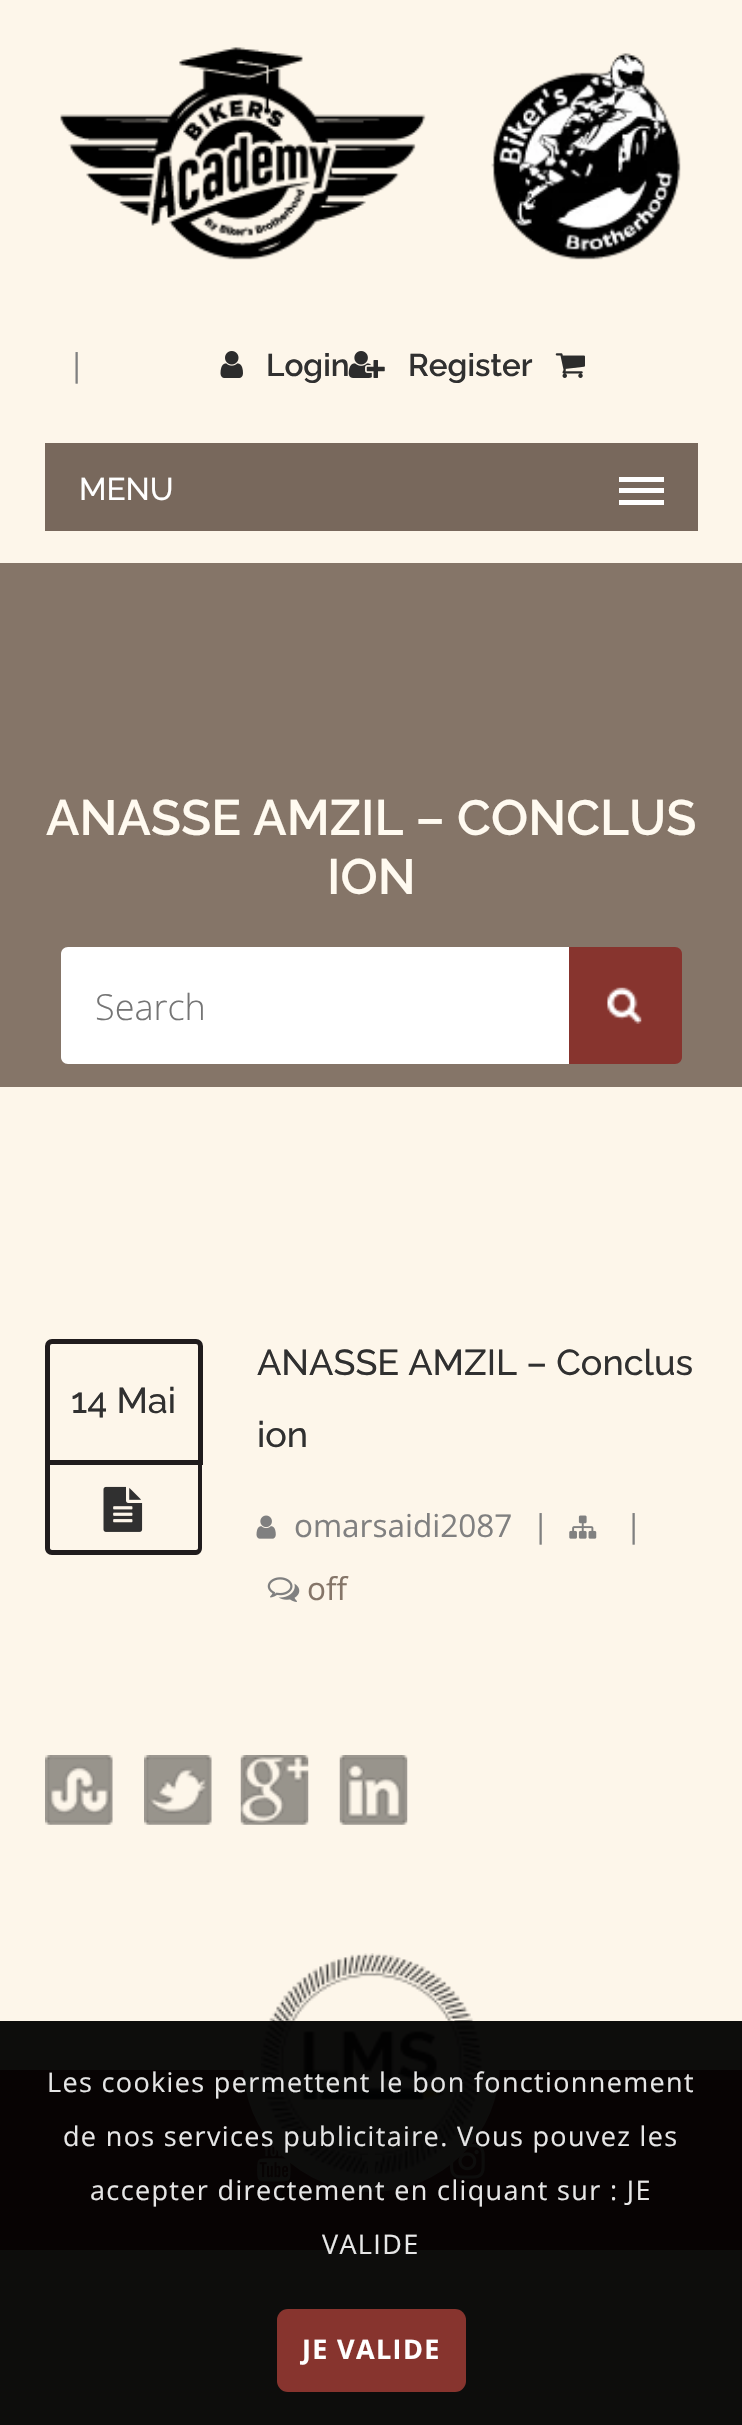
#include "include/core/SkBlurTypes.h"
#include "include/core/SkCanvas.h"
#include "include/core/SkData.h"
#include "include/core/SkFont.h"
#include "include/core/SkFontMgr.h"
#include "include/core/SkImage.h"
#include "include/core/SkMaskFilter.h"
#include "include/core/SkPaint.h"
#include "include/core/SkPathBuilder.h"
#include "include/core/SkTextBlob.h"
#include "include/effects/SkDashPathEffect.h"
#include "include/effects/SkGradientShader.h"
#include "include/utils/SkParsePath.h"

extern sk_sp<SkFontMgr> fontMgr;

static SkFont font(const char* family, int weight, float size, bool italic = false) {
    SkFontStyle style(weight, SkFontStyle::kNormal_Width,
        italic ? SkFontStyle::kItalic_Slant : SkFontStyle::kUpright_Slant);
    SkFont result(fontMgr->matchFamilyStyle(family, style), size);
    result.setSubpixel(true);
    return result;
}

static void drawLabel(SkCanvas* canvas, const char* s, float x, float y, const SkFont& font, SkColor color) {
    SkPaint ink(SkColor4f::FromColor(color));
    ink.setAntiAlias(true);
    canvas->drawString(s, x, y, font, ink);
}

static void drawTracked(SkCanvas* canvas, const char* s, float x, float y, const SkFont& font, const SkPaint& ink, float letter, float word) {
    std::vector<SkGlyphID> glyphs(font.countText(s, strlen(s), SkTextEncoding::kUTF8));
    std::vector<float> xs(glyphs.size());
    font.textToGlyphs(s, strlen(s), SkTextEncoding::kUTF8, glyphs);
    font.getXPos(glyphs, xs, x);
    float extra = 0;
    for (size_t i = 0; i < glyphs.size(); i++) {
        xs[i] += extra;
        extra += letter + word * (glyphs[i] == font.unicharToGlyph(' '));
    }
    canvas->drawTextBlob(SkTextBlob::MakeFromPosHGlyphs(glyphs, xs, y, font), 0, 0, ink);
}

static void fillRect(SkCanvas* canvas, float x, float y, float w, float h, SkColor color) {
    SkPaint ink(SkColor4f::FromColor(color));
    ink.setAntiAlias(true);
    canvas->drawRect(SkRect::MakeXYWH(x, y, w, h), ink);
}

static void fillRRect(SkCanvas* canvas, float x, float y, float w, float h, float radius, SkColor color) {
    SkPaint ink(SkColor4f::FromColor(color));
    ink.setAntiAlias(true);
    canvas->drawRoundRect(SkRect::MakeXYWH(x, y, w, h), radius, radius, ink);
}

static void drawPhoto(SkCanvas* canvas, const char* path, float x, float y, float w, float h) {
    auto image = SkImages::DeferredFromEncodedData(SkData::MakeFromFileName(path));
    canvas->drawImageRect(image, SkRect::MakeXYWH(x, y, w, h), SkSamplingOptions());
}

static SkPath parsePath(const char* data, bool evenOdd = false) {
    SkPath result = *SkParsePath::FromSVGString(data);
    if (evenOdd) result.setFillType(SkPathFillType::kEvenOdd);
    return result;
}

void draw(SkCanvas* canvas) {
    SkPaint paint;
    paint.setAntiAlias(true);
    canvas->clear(0xFFFDF6EA);
    drawPhoto(canvas, "assets/img1.png", 60, 47, 621, 213);
    SkFont font1 = font("Open Sans", 400, 31.5f);
    drawLabel(canvas, "|", 68, 376, font1, 0xFF808080);
    drawPhoto(canvas, "assets/img2.png", 220, 351, 23, 27);
    SkFont font2 = font("Raleway", 600, 31.5f);
    drawLabel(canvas, "Login", 266, 376, font2, 0xFF303030);
    drawPhoto(canvas, "assets/img3.png", 348, 351, 37, 27);
    drawLabel(canvas, "Register", 408, 376, font2, 0xFF303030);
    drawPhoto(canvas, "assets/img4.png", 555, 353, 30, 25);
    fillRect(canvas, 45, 443, 653, 88, 0xFF78685C);
    SkFont font3 = font("Raleway", 500, 31.5f);
    drawLabel(canvas, "MENU", 79, 500, font3, 0xFFFFFFFF);
    fillRect(canvas, 619, 488, 45, 5, 0xFFFFFFFF);
    fillRect(canvas, 619, 477, 45, 5, 0xFFFFFFFF);
    fillRect(canvas, 619, 500, 45, 5, 0xFFFFFFFF);
    fillRect(canvas, 0, 563, 742, 524, 0xFF857568);
    SkFont font4 = font("Raleway", 600, 49.5f);
    drawLabel(canvas, "ANASSE AMZIL – CONCLUS", 46, 835, font4, 0xFFFFFAF0);
    drawLabel(canvas, "ION", 327, 894, font4, 0xFFFFFAF0);
    paint.setColor(0xFFFFFFFF);
    canvas->drawPath(parsePath("M68 947H569V1064H68C64 1064 61 1061 61 1057V954C61 950 64 947 68 947Z"), paint);
    SkFont font5 = font("Open Sans", 300, 36);
    drawLabel(canvas, "Search", 95, 1020, font5, 0xFF757575);
    paint.setColor(0xFF87342E);
    canvas->drawPath(parsePath("M569 947H675C679 947 682 950 682 954V1057C682 1061 679 1064 675 1064H569Z"), paint);
    drawPhoto(canvas, "assets/img5.png", 607, 987, 35, 37);
    paint.setStroke(true);
    paint.setStrokeWidth(5);
    paint.setColor(0xFF201C1D);
    canvas->drawPath(parsePath("M52 1341.5H196C198.5 1341.5 200.5 1343.5 200.5 1346V1462.5H47.5V1346C47.5 1343.5 49.5 1341.5 52 1341.5Z"), paint);
    SkFont font6 = font("Raleway", 500, 36);
    drawLabel(canvas, "14 Mai", 71, 1413, font6, 0xFF303030);
    paint.setStroke(false);
    canvas->drawPath(parsePath("M45 1465H202V1548C202 1552 199 1555 196 1555H52C48 1555 45 1552 45 1548ZM50 1465H198V1548C198 1549 197 1550 196 1550H52C51 1550 50 1549 50 1548Z", true), paint);
    drawPhoto(canvas, "assets/img6.png", 103, 1486, 40, 46);
    drawLabel(canvas, "ANASSE AMZIL – Conclus", 257, 1375, font6, 0xFF303030);
    drawLabel(canvas, "ion", 257, 1447, font6, 0xFF303030);
    drawPhoto(canvas, "assets/img7.png", 256, 1515, 20, 24);
    drawLabel(canvas, "omarsaidi2087", 294, 1537, font1, 0xFF808080);
    drawLabel(canvas, "|", 532, 1537, font1, 0xFF808080);
    drawPhoto(canvas, "assets/img8.png", 569, 1515, 28, 24);
    drawLabel(canvas, "|", 625, 1537, font1, 0xFF808080);
    drawPhoto(canvas, "assets/img9.png", 267, 1577, 33, 25);
    drawLabel(canvas, "off", 307, 1600, font1, 0xFF857568);
    drawPhoto(canvas, "assets/img10.png", 45, 1755, 68, 70);
    drawPhoto(canvas, "assets/img11.png", 144, 1755, 68, 70);
    drawPhoto(canvas, "assets/img12.png", 240, 1755, 69, 70);
    drawPhoto(canvas, "assets/img13.png", 339, 1755, 69, 70);
    fillRect(canvas, 0, 2070, 742, 180, 0xFF87342E);
    paint.setColor(0xFFFDF6EA);
    canvas->drawCircle(371.5f, 2063.5f, 128.5f, paint);
    drawPhoto(canvas, "assets/img14.png", 261, 1953, 221, 223);
    drawPhoto(canvas, "assets/img15.png", 257, 2141, 34, 41);
    drawPhoto(canvas, "assets/img16.png", 362, 2152, 20, 24);
    drawPhoto(canvas, "assets/img17.png", 450, 2144, 35, 35);
    fillRect(canvas, 0, 2021, 742, 404, 0xF2000000);
    SkFont font7 = font("Open Sans", 400, 27);
    paint.setColor(0xFFE6E6E6);
    drawTracked(canvas, "Les cookies permettent le bon fonctionnement", 47, 2092, font7, paint, 1.35f, 0);
    drawTracked(canvas, "de nos services publicitaire. Vous pouvez les", 63, 2146, font7, paint, 1.35f, 0);
    drawTracked(canvas, "accepter directement en cliquant sur : JE", 90, 2200, font7, paint, 1.35f, 0);
    drawTracked(canvas, "VALIDE", 322, 2254, font7, paint, 1.35f, 0);
    fillRRect(canvas, 277, 2309, 189, 83, 11, 0xFF87342E);
    SkFont font8 = font("Open Sans", 700, 27);
    paint.setColor(0xFFFFFFFF);
    drawTracked(canvas, "JE VALIDE", 302, 2359, font8, paint, 1.35f, 0);
}
